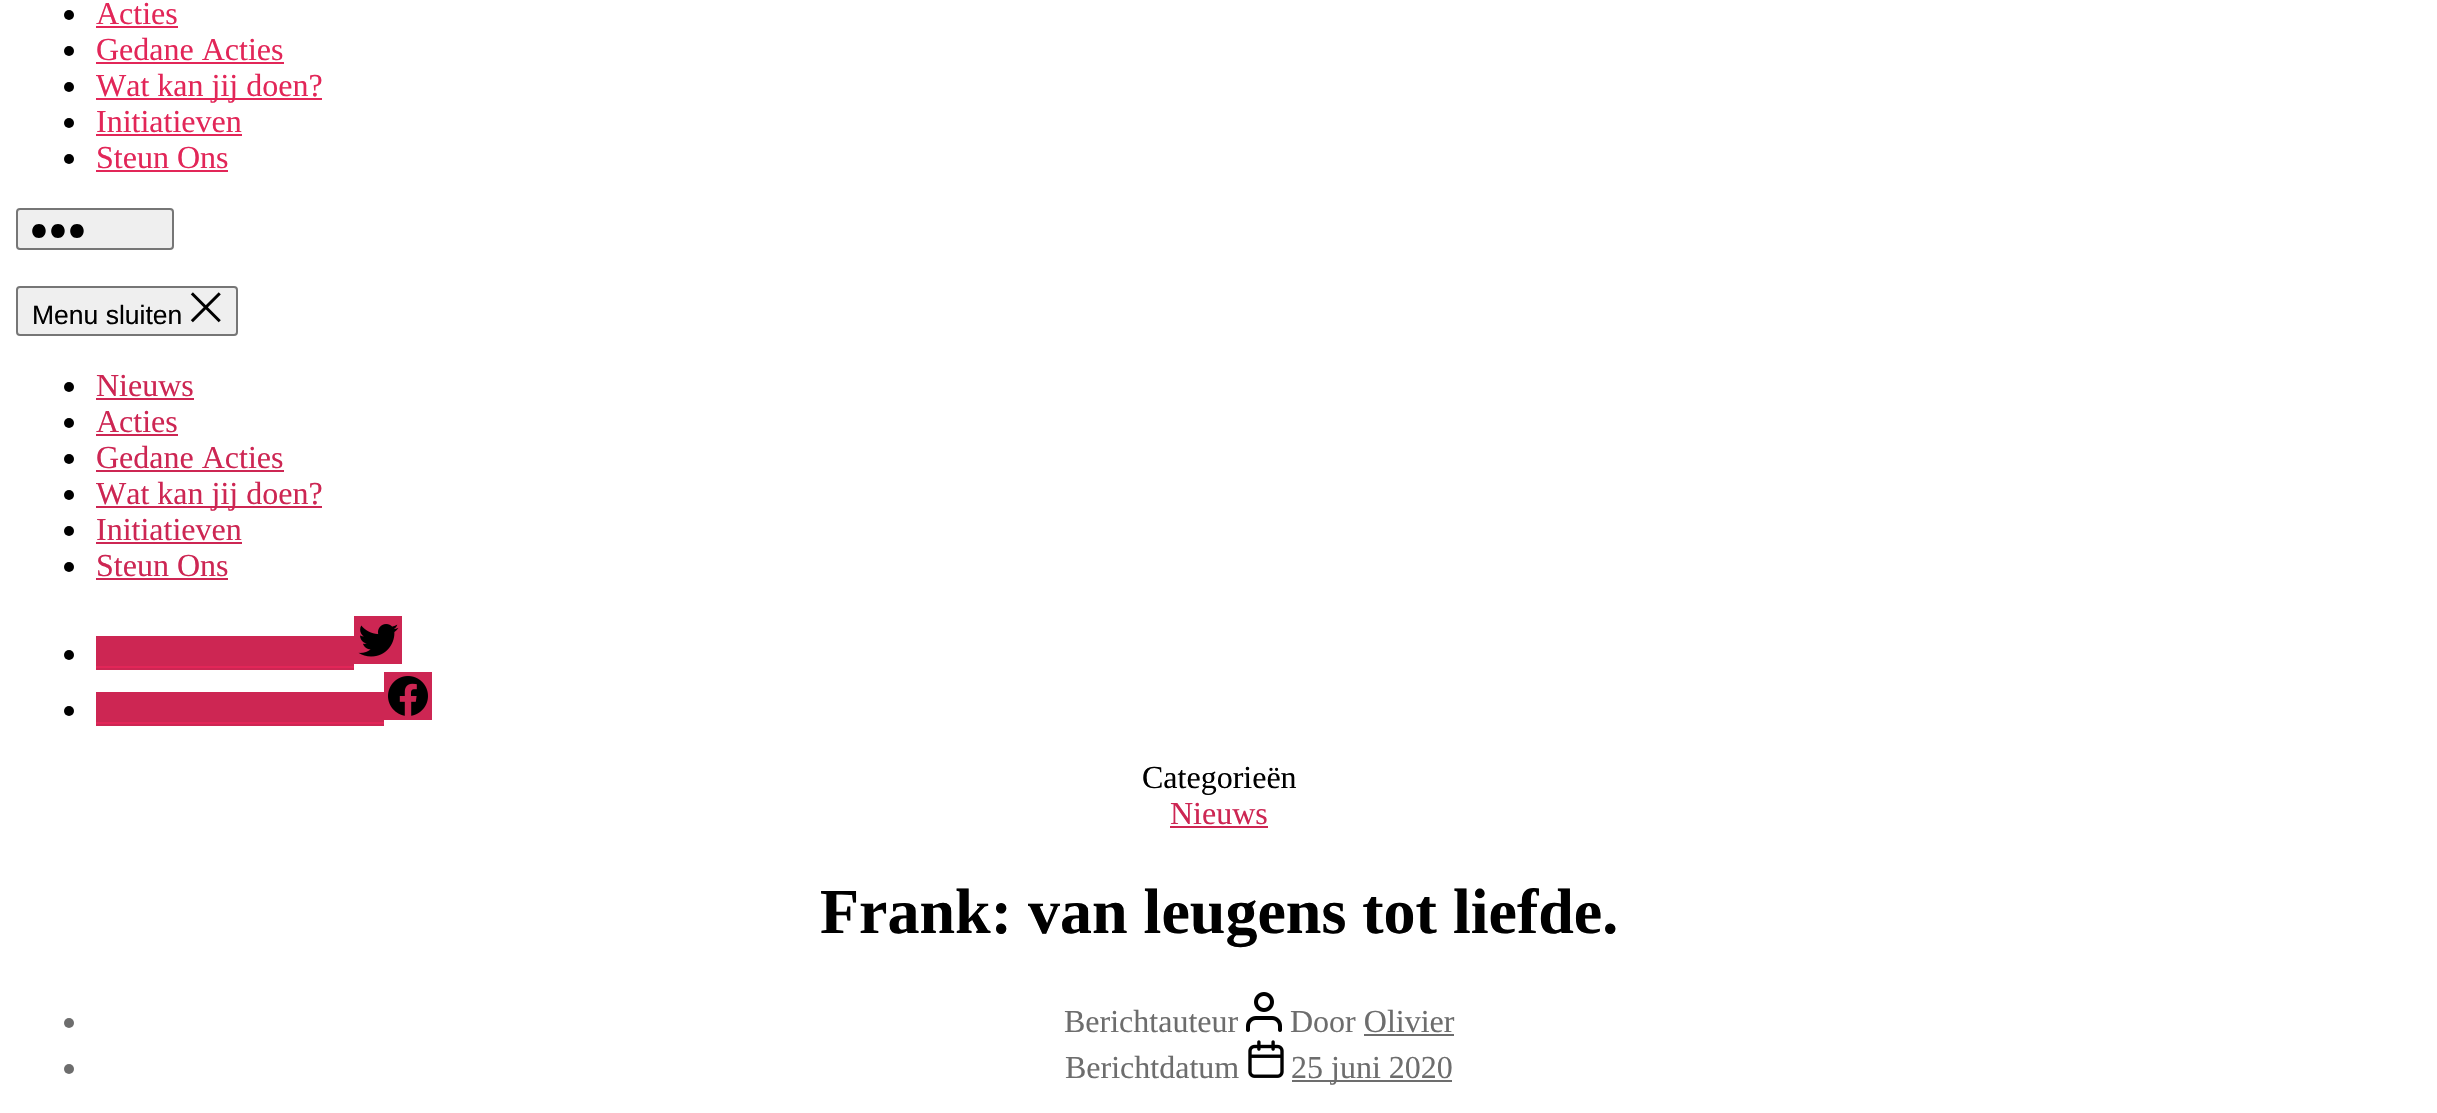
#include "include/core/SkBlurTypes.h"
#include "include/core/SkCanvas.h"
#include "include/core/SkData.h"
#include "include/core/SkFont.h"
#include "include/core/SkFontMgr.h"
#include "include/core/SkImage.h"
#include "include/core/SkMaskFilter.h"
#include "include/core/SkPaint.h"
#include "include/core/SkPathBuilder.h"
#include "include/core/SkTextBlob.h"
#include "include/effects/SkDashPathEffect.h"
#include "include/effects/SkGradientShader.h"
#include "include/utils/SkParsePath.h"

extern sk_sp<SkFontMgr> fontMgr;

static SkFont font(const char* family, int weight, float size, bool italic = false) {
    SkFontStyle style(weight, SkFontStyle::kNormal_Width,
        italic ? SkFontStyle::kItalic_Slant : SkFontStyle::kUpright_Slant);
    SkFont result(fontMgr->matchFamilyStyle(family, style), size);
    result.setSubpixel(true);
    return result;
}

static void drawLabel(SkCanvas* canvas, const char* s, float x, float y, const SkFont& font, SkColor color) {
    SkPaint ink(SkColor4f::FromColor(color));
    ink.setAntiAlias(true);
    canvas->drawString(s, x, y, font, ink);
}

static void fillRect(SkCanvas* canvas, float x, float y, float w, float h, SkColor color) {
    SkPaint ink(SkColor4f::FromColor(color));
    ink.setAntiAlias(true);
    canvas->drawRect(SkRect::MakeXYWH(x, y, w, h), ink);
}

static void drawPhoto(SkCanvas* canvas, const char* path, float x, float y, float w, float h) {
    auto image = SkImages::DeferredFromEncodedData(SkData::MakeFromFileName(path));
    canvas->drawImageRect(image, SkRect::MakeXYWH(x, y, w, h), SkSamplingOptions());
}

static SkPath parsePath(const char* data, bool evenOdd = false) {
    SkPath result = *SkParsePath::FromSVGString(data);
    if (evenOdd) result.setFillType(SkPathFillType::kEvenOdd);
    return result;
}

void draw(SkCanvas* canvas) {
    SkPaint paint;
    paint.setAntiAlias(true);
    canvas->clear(0xFFFFFFFF);
    paint.setColor(0xFF000000);
    canvas->drawCircle(69, 15, 5, paint);
    SkFont font1 = font("Liberation Serif", 400, 32);
    drawLabel(canvas, "Acties", 96, 24, font1, 0xFFE22658);
    fillRect(canvas, 96, 26, 82, 2, 0xFFE22658);
    canvas->drawCircle(69, 51, 5, paint);
    drawLabel(canvas, "Gedane Acties", 96, 60, font1, 0xFFE22658);
    fillRect(canvas, 96, 62, 188, 2, 0xFFE22658);
    canvas->drawCircle(69, 87, 5, paint);
    fillRect(canvas, 96, 98, 226, 2, 0xFFE22658);
    drawLabel(canvas, "Wat kan jij doen?", 96, 96, font1, 0xFFE22658);
    canvas->drawCircle(69, 123, 5, paint);
    drawLabel(canvas, "Initiatieven", 96, 132, font1, 0xFFE22658);
    fillRect(canvas, 96, 134, 146, 2, 0xFFE22658);
    canvas->drawCircle(69, 159, 5, paint);
    drawLabel(canvas, "Steun Ons", 96, 168, font1, 0xFFE22658);
    fillRect(canvas, 96, 170, 132, 2, 0xFFE22658);
    paint.setColor(0xFFEFEFEF);
    canvas->drawRoundRect(SkRect::MakeXYWH(17, 209, 156, 40), 3, 3, paint);
    paint.setStroke(true);
    paint.setStrokeWidth(2);
    paint.setColor(0xFF767676);
    canvas->drawRoundRect(SkRect::MakeXYWH(17, 209, 156, 40), 3, 3, paint);
    paint.setStroke(false);
    paint.setColor(0xFF000000);
    canvas->drawPath(parsePath("M39 238C30 238 30 224 39 224C48 224 48 238 39 238ZM58 238C49 238 49 224 58 224C67 224 67 238 58 238ZM77 238C68 238 68 224 77 224C86 224 86 238 77 238Z", true), paint);
    paint.setColor(0xFFEFEFEF);
    canvas->drawRoundRect(SkRect::MakeXYWH(17, 287, 220, 48), 3, 3, paint);
    paint.setStroke(true);
    paint.setColor(0xFF767676);
    canvas->drawRoundRect(SkRect::MakeXYWH(17, 287, 220, 48), 3, 3, paint);
    SkFont font2 = font("Liberation Sans", 400, 26.5f);
    drawLabel(canvas, "Menu sluiten", 32, 324, font2, 0xFF000000);
    drawPhoto(canvas, "assets/img1.png", 190, 292, 31, 31);
    paint.setStroke(false);
    paint.setColor(0xFF000000);
    canvas->drawCircle(69, 387, 5, paint);
    drawLabel(canvas, "Nieuws", 96, 396, font1, 0xFFCD2653);
    fillRect(canvas, 96, 398, 98, 2, 0xFFCD2653);
    canvas->drawCircle(69, 423, 5, paint);
    drawLabel(canvas, "Acties", 96, 432, font1, 0xFFCD2653);
    fillRect(canvas, 96, 434, 82, 2, 0xFFCD2653);
    canvas->drawCircle(69, 459, 5, paint);
    drawLabel(canvas, "Gedane Acties", 96, 468, font1, 0xFFCD2653);
    fillRect(canvas, 96, 470, 188, 2, 0xFFCD2653);
    canvas->drawCircle(69, 495, 5, paint);
    fillRect(canvas, 96, 506, 226, 2, 0xFFCD2653);
    drawLabel(canvas, "Wat kan jij doen?", 96, 504, font1, 0xFFCD2653);
    canvas->drawCircle(69, 531, 5, paint);
    drawLabel(canvas, "Initiatieven", 96, 540, font1, 0xFFCD2653);
    fillRect(canvas, 96, 542, 146, 2, 0xFFCD2653);
    canvas->drawCircle(69, 567, 5, paint);
    drawLabel(canvas, "Steun Ons", 96, 576, font1, 0xFFCD2653);
    fillRect(canvas, 96, 578, 132, 2, 0xFFCD2653);
    fillRect(canvas, 354, 616, 48, 48, 0xFFCD2653);
    canvas->drawCircle(69, 655, 5, paint);
    fillRect(canvas, 96, 636, 258, 34, 0xFFCD2653);
    drawPhoto(canvas, "assets/img2.png", 358, 624, 41, 33);
    fillRect(canvas, 96, 666, 258, 2, 0xFFE22658);
    fillRect(canvas, 384, 672, 48, 48, 0xFFCD2653);
    canvas->drawCircle(69, 711, 5, paint);
    fillRect(canvas, 96, 692, 288, 34, 0xFFCD2653);
    drawPhoto(canvas, "assets/img3.png", 388, 676, 40, 40);
    fillRect(canvas, 96, 722, 288, 2, 0xFFE22658);
    drawLabel(canvas, "Categorieën", 1142, 788, font1, 0xFF000000);
    drawLabel(canvas, "Nieuws", 1170, 824, font1, 0xFFCD2653);
    fillRect(canvas, 1170, 826, 98, 2, 0xFFCD2653);
    SkFont font3 = font("Liberation Serif", 700, 64);
    drawLabel(canvas, "Frank: van leugens tot liefde.", 820, 933, font3, 0xFF000000);
    paint.setColor(0xFF6D6D6D);
    canvas->drawCircle(69, 1023, 5, paint);
    drawLabel(canvas, "Berichtauteur", 1064, 1032, font1, 0xFF6D6D6D);
    drawPhoto(canvas, "assets/img4.png", 1246, 992, 36, 40);
    drawLabel(canvas, "Door Olivier", 1290, 1032, font1, 0xFF6D6D6D);
    fillRect(canvas, 1364, 1034, 90, 2, 0xFF6D6D6D);
    canvas->drawCircle(69, 1069, 5, paint);
    drawLabel(canvas, "Berichtdatum", 1065, 1078, font1, 0xFF6D6D6D);
    drawPhoto(canvas, "assets/img5.png", 1248, 1040, 36, 38);
    fillRect(canvas, 1292, 1080, 160, 2, 0xFF6D6D6D);
    drawLabel(canvas, "25 juni 2020", 1291, 1078, font1, 0xFF6D6D6D);
}
